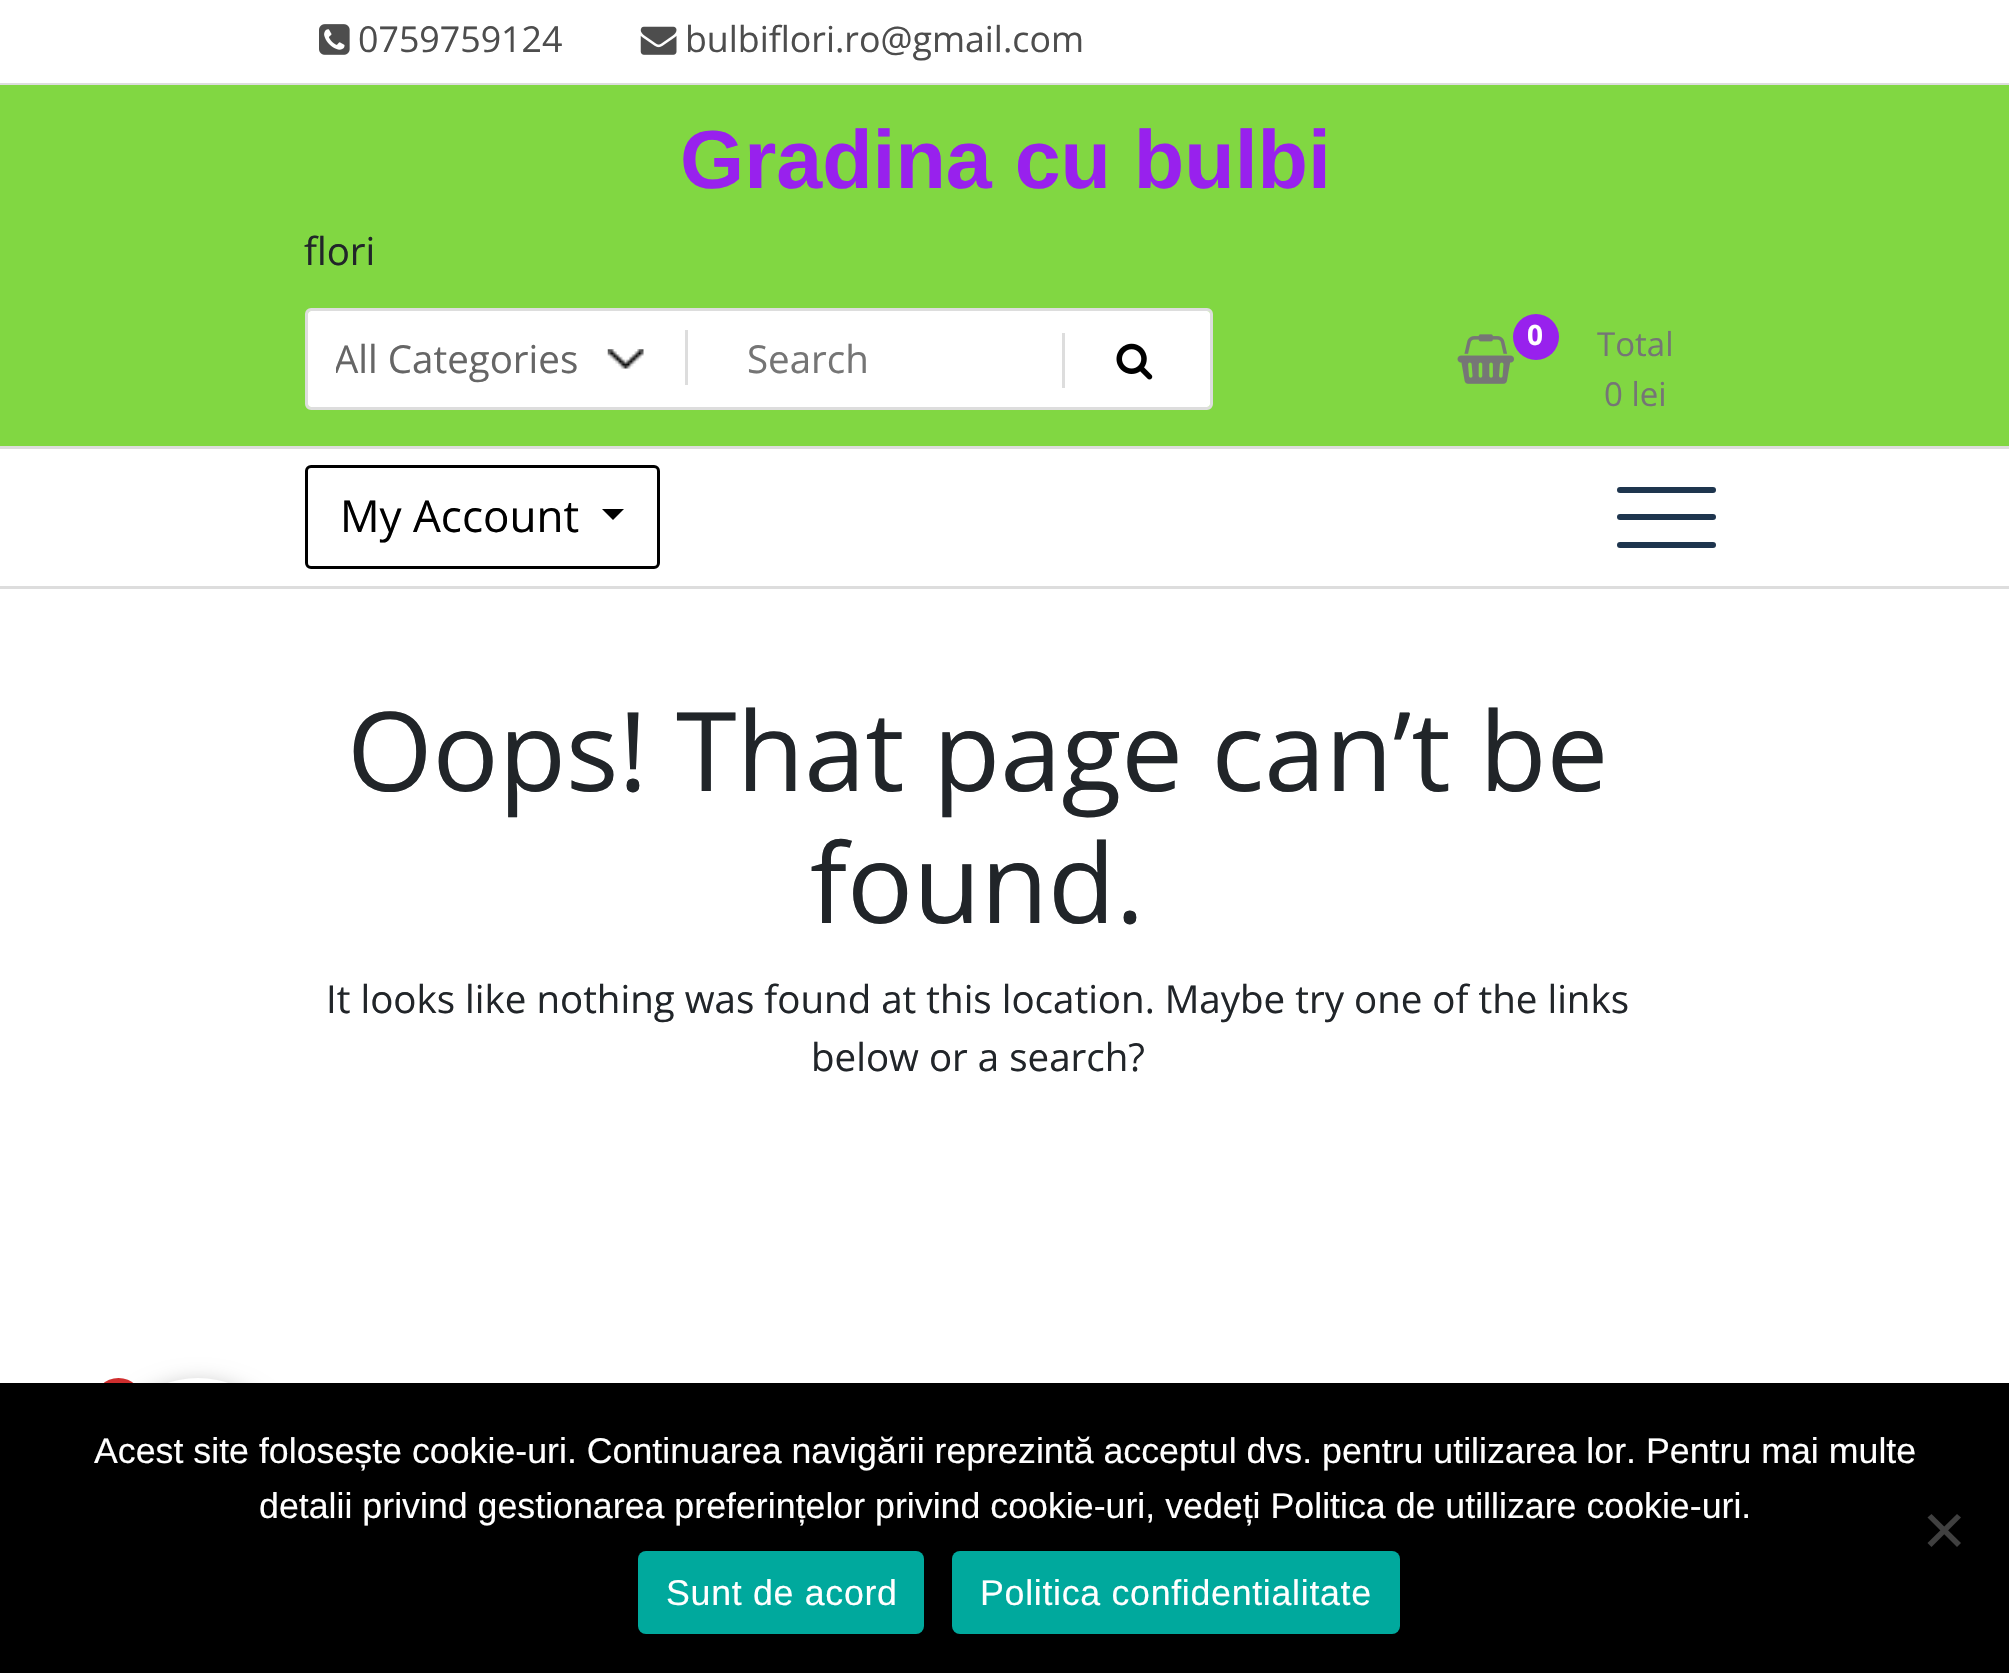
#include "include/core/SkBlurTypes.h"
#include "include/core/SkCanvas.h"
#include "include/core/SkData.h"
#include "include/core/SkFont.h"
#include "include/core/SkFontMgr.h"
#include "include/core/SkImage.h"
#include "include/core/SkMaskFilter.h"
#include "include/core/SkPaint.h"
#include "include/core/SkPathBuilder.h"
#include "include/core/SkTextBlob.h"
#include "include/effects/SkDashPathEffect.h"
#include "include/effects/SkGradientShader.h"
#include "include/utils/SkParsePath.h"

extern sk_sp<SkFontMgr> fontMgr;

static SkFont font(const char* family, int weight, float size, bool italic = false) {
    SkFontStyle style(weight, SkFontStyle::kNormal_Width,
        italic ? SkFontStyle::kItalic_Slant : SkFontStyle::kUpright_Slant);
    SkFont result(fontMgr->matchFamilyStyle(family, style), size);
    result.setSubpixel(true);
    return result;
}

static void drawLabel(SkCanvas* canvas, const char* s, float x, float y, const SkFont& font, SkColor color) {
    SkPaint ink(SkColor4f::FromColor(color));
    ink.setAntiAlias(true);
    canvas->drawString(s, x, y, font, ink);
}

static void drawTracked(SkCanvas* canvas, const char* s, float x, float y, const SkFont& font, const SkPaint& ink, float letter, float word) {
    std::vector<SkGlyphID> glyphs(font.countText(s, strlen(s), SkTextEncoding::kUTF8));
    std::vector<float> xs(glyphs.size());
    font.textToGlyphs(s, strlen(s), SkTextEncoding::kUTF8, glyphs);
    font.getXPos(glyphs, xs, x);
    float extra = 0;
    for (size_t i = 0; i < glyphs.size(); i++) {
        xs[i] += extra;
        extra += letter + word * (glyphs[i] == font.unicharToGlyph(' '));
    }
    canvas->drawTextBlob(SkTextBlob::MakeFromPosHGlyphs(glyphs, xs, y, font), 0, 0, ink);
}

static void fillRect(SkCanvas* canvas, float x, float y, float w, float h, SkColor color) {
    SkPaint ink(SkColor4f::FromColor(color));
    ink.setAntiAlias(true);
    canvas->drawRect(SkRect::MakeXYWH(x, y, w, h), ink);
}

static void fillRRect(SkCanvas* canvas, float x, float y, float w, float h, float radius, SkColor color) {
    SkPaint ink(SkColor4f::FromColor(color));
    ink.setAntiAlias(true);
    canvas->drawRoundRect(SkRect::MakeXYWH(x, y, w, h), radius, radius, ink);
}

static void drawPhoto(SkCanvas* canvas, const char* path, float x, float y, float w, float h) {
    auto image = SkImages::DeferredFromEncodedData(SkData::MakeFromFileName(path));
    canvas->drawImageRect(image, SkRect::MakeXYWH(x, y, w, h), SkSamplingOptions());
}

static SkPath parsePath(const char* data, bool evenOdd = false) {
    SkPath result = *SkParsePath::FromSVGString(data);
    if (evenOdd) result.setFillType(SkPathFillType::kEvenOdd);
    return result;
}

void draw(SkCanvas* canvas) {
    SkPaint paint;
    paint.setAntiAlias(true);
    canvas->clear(0xFFFFFFFF);
    fillRect(canvas, 0, 83, 2009, 2, 0xFFDDDDDD);
    drawPhoto(canvas, "assets/img1.png", 319, 24, 31, 31);
    SkFont font1 = font("Open Sans", 400, 35.75f);
    drawLabel(canvas, "0759759124", 358, 52, font1, 0xFF4D4D4D);
    drawPhoto(canvas, "assets/img2.png", 640, 26, 37, 29);
    drawLabel(canvas, "bulbiflori.ro@gmail.com", 685, 52, font1, 0xFF4D4D4D);
    fillRect(canvas, 0, 85, 2009, 361, 0xFF81D742);
    SkFont font2 = font("Liberation Sans", 700, 82.5f);
    drawLabel(canvas, "Gradina cu bulbi", 680, 188, font2, 0xFF9821ED);
    SkFont font3 = font("Open Sans", 400, 38.5f);
    drawLabel(canvas, "flori", 304, 265, font3, 0xFF212529);
    paint.setStroke(true);
    paint.setStrokeWidth(3);
    paint.setColor(0xFFDDDDDD);
    canvas->drawRoundRect(SkRect::MakeXYWH(306.5f, 309.5f, 905, 99), 4.5f, 4.5f, paint);
    fillRRect(canvas, 308, 311, 902, 96, 3, 0xFFFFFFFF);
    drawPhoto(canvas, "assets/img3.png", 607, 349, 37, 20);
    canvas->save();
    canvas->clipRect(SkRect::MakeXYWH(336, 330, 261, 58));
    drawLabel(canvas, "All Categories", 334, 373, font3, 0xFF666666);
    canvas->restore();
    fillRect(canvas, 685, 330, 3, 55, 0xFFDDDDDD);
    drawLabel(canvas, "Search", 747, 373, font3, 0xFF757575);
    fillRect(canvas, 1062, 333, 3, 55, 0xFFDDDDDD);
    drawPhoto(canvas, "assets/img4.png", 1116, 343, 37, 37);
    drawPhoto(canvas, "assets/img5.png", 1457, 334, 57, 50);
    paint.setStroke(false);
    paint.setColor(0xFF9821ED);
    canvas->drawCircle(1536, 337, 23, paint);
    SkFont font4 = font("Open Sans", 700, 28);
    drawLabel(canvas, "0", 1527, 345, font4, 0xFFFFFFFF);
    SkFont font5 = font("Open Sans", 400, 33);
    drawLabel(canvas, "Total", 1597, 356, font5, 0xFF757575);
    drawLabel(canvas, "0 lei", 1604, 406, font5, 0xFF757575);
    fillRect(canvas, 0, 446, 2009, 3, 0xFFDDDDDD);
    fillRect(canvas, 0, 586, 2009, 3, 0xFFDDDDDD);
    paint.setStroke(true);
    paint.setColor(0xFF000000);
    canvas->drawRoundRect(SkRect::MakeXYWH(306.5f, 466.5f, 352, 101), 4.5f, 4.5f, paint);
    SkFont font6 = font("Open Sans", 400, 44);
    drawLabel(canvas, "My Account", 340, 532, font6, 0xFF000000);
    paint.setStroke(false);
    canvas->drawPath(parsePath("M602 509H624L613 520Z"), paint);
    fillRRect(canvas, 1617, 487, 99, 6, 3, 0xFF1E354E);
    fillRRect(canvas, 1617, 514, 99, 6, 3, 0xFF1E354E);
    fillRRect(canvas, 1617, 542, 99, 6, 3, 0xFF1E354E);
    SkFont font7 = font("Open Sans", 400, 110);
    drawLabel(canvas, "Oops! That page can’t be", 347, 791, font7, 0xFF212529);
    drawLabel(canvas, "found.", 810, 923, font7, 0xFF212529);
    drawLabel(canvas, "It looks like nothing was found at this location. Maybe try one of the links", 326, 1013, font3, 0xFF212529);
    drawLabel(canvas, "below or a search?", 811, 1071, font3, 0xFF212529);
    paint.setColor(0x40000000);
    paint.setMaskFilter(SkMaskFilter::MakeBlur(kNormal_SkBlurStyle, 11));
    canvas->drawRoundRect(SkRect::MakeXYWH(99, 1383, 198, 198), 99, 99, paint);
    paint.setMaskFilter(nullptr);
    paint.setColor(0xFFFFFFFF);
    canvas->drawCircle(198, 1477, 99, paint);
    paint.setColor(0xFFCF2E2E);
    canvas->drawCircle(118.5f, 1402.5f, 24.5f, paint);
    fillRect(canvas, 0, 1383, 2009, 290, 0xFF000000);
    SkFont font8 = font("Liberation Sans", 400, 35.75f);
    drawLabel(canvas, "Acest site folosește cookie-uri. Continuarea navigării reprezintă acceptul dvs. pentru utilizarea lor. Pentru mai multe", 94, 1463, font8, 0xFFFFFFFF);
    drawLabel(canvas, "detalii privind gestionarea preferințelor privind cookie-uri, vedeți Politica de utillizare cookie-uri.", 259, 1518, font8, 0xFFFFFFFF);
    paint.setColor(0xFF404040);
    canvas->drawPath(parsePath("M1957 1514L1961 1517.5L1931.5 1547L1927.5 1543Z"), paint);
    canvas->drawPath(parsePath("M1927.5 1517.5L1931.5 1514L1961 1543L1957 1547Z"), paint);
    fillRRect(canvas, 638, 1551, 286, 83, 8, 0xFF00A99D);
    paint.setColor(0xFFFFFFFF);
    drawTracked(canvas, "Sunt de acord", 666, 1605, font8, paint, 0.7f, 0);
    fillRRect(canvas, 952, 1551, 448, 83, 8, 0xFF00A99D);
    drawTracked(canvas, "Politica confidentialitate", 980, 1605, font8, paint, 0.7f, 0);
}
